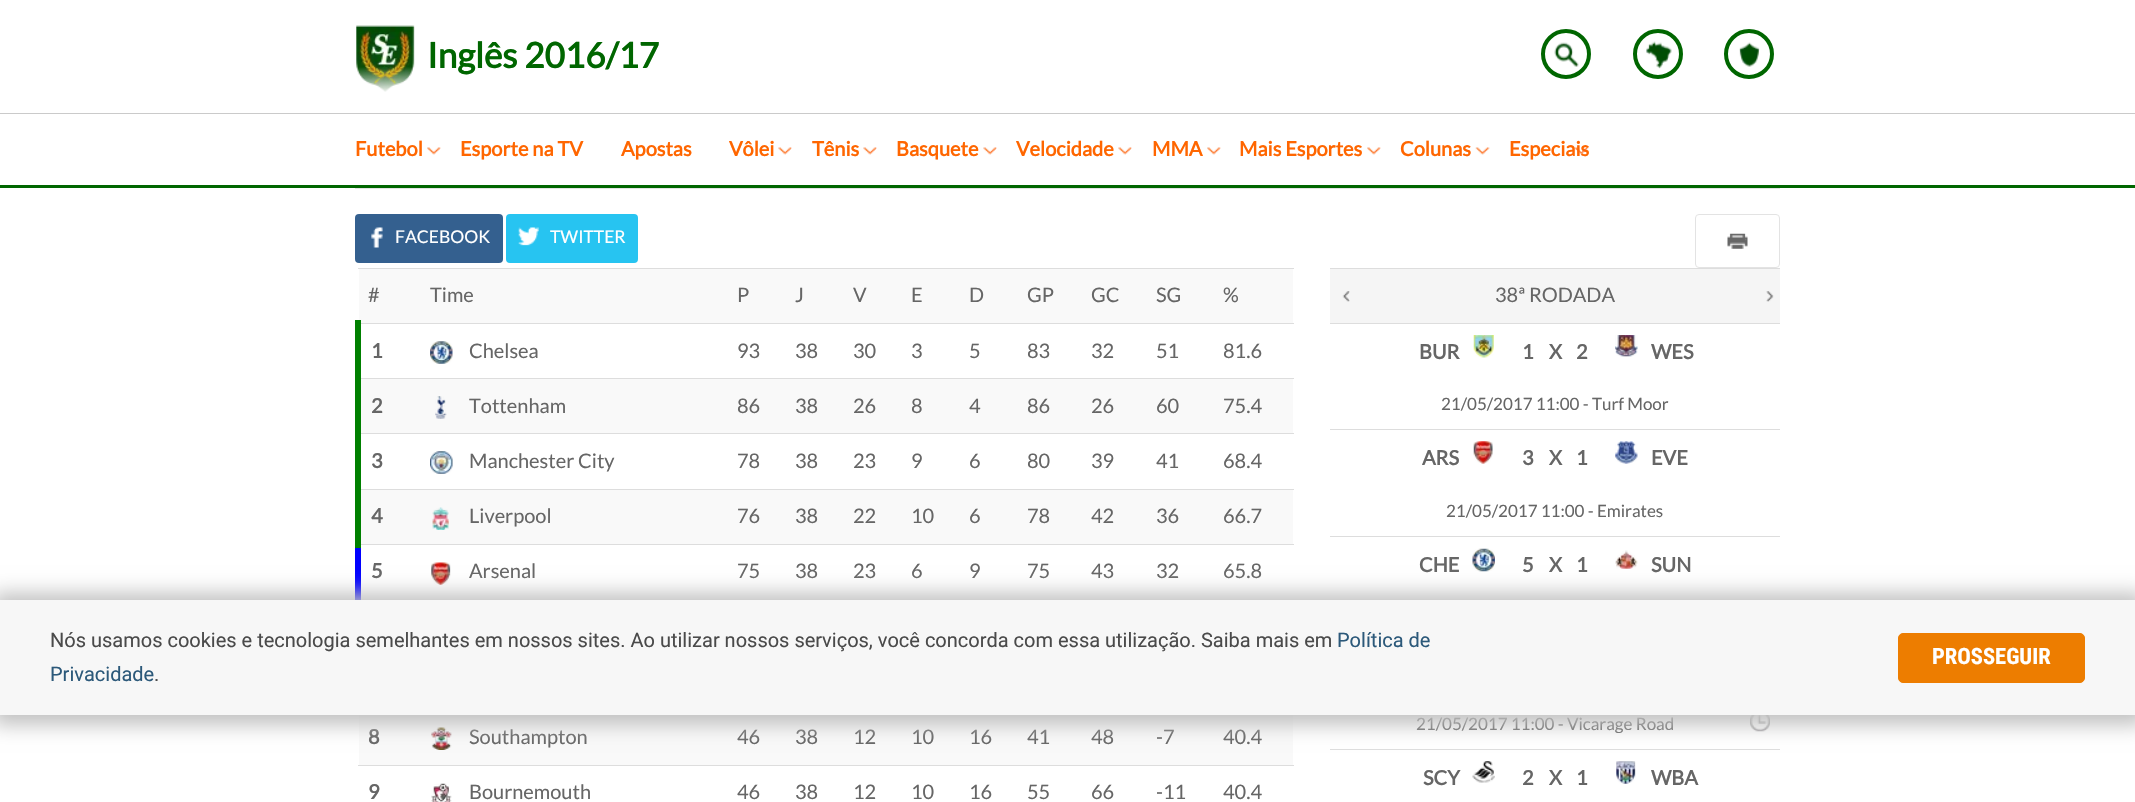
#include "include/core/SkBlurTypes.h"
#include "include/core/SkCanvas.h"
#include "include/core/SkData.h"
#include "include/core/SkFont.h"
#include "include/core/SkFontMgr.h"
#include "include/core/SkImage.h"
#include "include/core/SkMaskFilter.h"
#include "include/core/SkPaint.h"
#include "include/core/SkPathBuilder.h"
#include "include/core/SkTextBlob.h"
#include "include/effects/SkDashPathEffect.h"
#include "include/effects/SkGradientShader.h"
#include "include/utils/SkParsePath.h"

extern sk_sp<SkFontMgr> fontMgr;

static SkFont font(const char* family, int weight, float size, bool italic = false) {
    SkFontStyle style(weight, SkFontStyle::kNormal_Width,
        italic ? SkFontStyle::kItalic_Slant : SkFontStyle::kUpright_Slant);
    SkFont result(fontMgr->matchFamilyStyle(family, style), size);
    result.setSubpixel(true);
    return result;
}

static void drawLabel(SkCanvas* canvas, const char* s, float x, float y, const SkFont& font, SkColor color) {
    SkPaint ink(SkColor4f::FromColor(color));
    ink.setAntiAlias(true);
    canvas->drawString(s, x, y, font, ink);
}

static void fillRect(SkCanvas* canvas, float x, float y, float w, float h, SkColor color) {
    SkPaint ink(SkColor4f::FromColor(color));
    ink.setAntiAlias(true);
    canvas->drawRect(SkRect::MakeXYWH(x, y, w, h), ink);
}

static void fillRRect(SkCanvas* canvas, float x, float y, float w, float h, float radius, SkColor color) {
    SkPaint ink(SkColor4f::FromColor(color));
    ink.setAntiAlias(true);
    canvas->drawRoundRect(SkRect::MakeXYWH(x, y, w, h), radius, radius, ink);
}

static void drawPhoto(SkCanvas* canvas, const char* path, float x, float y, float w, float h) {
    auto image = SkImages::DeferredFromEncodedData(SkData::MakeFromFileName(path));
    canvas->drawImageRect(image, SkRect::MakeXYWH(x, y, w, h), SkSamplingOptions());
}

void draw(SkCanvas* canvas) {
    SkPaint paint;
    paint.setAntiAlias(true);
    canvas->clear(0xFFFFFFFF);
    drawPhoto(canvas, "assets/img1.png", 356, 25, 59, 67);
    SkFont font1 = font("Lato", 700, 35);
    drawLabel(canvas, "Inglês 2016/17", 427, 68, font1, 0xFF006600);
    paint.setStroke(true);
    paint.setStrokeWidth(4);
    paint.setColor(0xFF006600);
    canvas->drawCircle(1566, 54, 23, paint);
    drawPhoto(canvas, "assets/img2.png", 1554, 42, 25, 25);
    canvas->drawCircle(1658, 54, 23, paint);
    drawPhoto(canvas, "assets/img3.png", 1646, 41, 26, 28);
    canvas->drawCircle(1749, 54, 23, paint);
    drawPhoto(canvas, "assets/img4.png", 1739, 42, 21, 25);
    fillRect(canvas, 0, 113, 2135, 1, 0xFFCACACA);
    fillRect(canvas, 0, 185, 2135, 3, 0xFF006600);
    SkFont font2 = font("Lato", 700, 20);
    drawLabel(canvas, "Futebol", 355, 156, font2, 0xFFFF6600);
    drawPhoto(canvas, "assets/img5.png", 427, 147, 14, 8);
    drawLabel(canvas, "Esporte na TV", 460, 156, font2, 0xFFFF6600);
    drawLabel(canvas, "Apostas", 621, 156, font2, 0xFFFF6600);
    drawLabel(canvas, "Vôlei", 729, 156, font2, 0xFFFF6600);
    drawPhoto(canvas, "assets/img6.png", 778, 147, 14, 8);
    drawLabel(canvas, "Tênis", 812, 156, font2, 0xFFFF6600);
    drawPhoto(canvas, "assets/img6.png", 863, 147, 14, 8);
    drawLabel(canvas, "Basquete", 896, 156, font2, 0xFFFF6600);
    drawPhoto(canvas, "assets/img6.png", 983, 147, 14, 8);
    drawLabel(canvas, "Velocidade", 1016, 156, font2, 0xFFFF6600);
    drawPhoto(canvas, "assets/img6.png", 1118, 147, 14, 8);
    drawLabel(canvas, "MMA", 1152, 156, font2, 0xFFFF6600);
    drawPhoto(canvas, "assets/img5.png", 1207, 147, 14, 8);
    drawLabel(canvas, "Mais Esportes", 1239, 156, font2, 0xFFFF6600);
    drawPhoto(canvas, "assets/img5.png", 1367, 147, 14, 8);
    drawLabel(canvas, "Colunas", 1400, 156, font2, 0xFFFF6600);
    drawPhoto(canvas, "assets/img7.png", 1475, 147, 15, 8);
    drawLabel(canvas, "Especiais", 1509, 156, font2, 0xFFFF6600);
    drawPhoto(canvas, "assets/img8.png", 1574, 147, 15, 8);
    fillRect(canvas, 355, 188, 1425, 1, 0xFFE3E3E3);
    fillRRect(canvas, 355, 214, 148, 49, 4, 0xFF34608F);
    drawPhoto(canvas, "assets/img9.png", 371, 227, 12, 21);
    SkFont font3 = font("Lato", 400, 17.5f);
    drawLabel(canvas, "FACEBOOK", 395, 243, font3, 0xFFFFFFFF);
    fillRRect(canvas, 506, 214, 132, 49, 4, 0xFF27C4F1);
    drawPhoto(canvas, "assets/img10.png", 518, 227, 21, 19);
    drawLabel(canvas, "TWITTER", 550, 243, font3, 0xFFFFFFFF);
    paint.setStrokeWidth(1);
    paint.setColor(0xFFE3E3E3);
    canvas->drawRoundRect(SkRect::MakeXYWH(1695.5f, 214.5f, 84, 53), 3.5f, 3.5f, paint);
    drawPhoto(canvas, "assets/img11.png", 1727, 233, 21, 16);
    fillRect(canvas, 359, 269, 934, 54, 0xFFF9F9F9);
    SkFont font4 = font("Lato", 400, 20);
    drawLabel(canvas, "#", 368, 302, font4, 0xFF666666);
    drawLabel(canvas, "Time", 430, 302, font4, 0xFF666666);
    drawLabel(canvas, "P", 737, 302, font4, 0xFF666666);
    drawLabel(canvas, "J", 795, 302, font4, 0xFF666666);
    drawLabel(canvas, "V", 853, 302, font4, 0xFF666666);
    drawLabel(canvas, "E", 911, 302, font4, 0xFF666666);
    drawLabel(canvas, "D", 969, 302, font4, 0xFF666666);
    drawLabel(canvas, "GP", 1027, 302, font4, 0xFF666666);
    drawLabel(canvas, "GC", 1091, 302, font4, 0xFF666666);
    drawLabel(canvas, "SG", 1156, 302, font4, 0xFF666666);
    fillRect(canvas, 358, 268, 936, 1, 0xFFDDDDDD);
    drawLabel(canvas, "%", 1223, 302, font4, 0xFF666666);
    drawLabel(canvas, "1", 371, 358, font2, 0xFF666666);
    drawPhoto(canvas, "assets/img12.png", 430, 341, 23, 23);
    drawLabel(canvas, "Chelsea", 469, 358, font4, 0xFF666666);
    drawLabel(canvas, "93", 737, 358, font4, 0xFF666666);
    drawLabel(canvas, "38", 795, 358, font4, 0xFF666666);
    drawLabel(canvas, "30", 853, 358, font4, 0xFF666666);
    drawLabel(canvas, "3", 911, 358, font4, 0xFF666666);
    drawLabel(canvas, "5", 969, 358, font4, 0xFF666666);
    drawLabel(canvas, "83", 1027, 358, font4, 0xFF666666);
    drawLabel(canvas, "32", 1091, 358, font4, 0xFF666666);
    drawLabel(canvas, "51", 1156, 358, font4, 0xFF666666);
    fillRect(canvas, 358, 323, 936, 1, 0xFFDDDDDD);
    drawLabel(canvas, "81.6", 1223, 358, font4, 0xFF666666);
    fillRect(canvas, 361, 379, 932, 54, 0xFFF9F9F9);
    drawLabel(canvas, "2", 371, 413, font2, 0xFF666666);
    drawPhoto(canvas, "assets/img13.png", 435, 396, 12, 23);
    drawLabel(canvas, "Tottenham", 469, 413, font4, 0xFF666666);
    drawLabel(canvas, "86", 737, 413, font4, 0xFF666666);
    drawLabel(canvas, "38", 795, 413, font4, 0xFF666666);
    drawLabel(canvas, "26", 853, 413, font4, 0xFF666666);
    drawLabel(canvas, "8", 911, 413, font4, 0xFF666666);
    drawLabel(canvas, "4", 969, 413, font4, 0xFF666666);
    drawLabel(canvas, "86", 1027, 413, font4, 0xFF666666);
    drawLabel(canvas, "26", 1091, 413, font4, 0xFF666666);
    drawLabel(canvas, "60", 1156, 413, font4, 0xFF666666);
    fillRect(canvas, 358, 378, 936, 1, 0xFFDDDDDD);
    drawLabel(canvas, "75.4", 1223, 413, font4, 0xFF666666);
    drawLabel(canvas, "3", 371, 468, font2, 0xFF666666);
    drawPhoto(canvas, "assets/img14.png", 430, 451, 23, 23);
    drawLabel(canvas, "Manchester City", 469, 468, font4, 0xFF666666);
    drawLabel(canvas, "78", 737, 468, font4, 0xFF666666);
    drawLabel(canvas, "38", 795, 468, font4, 0xFF666666);
    drawLabel(canvas, "23", 853, 468, font4, 0xFF666666);
    drawLabel(canvas, "9", 911, 468, font4, 0xFF666666);
    drawLabel(canvas, "6", 969, 468, font4, 0xFF666666);
    drawLabel(canvas, "80", 1027, 468, font4, 0xFF666666);
    drawLabel(canvas, "39", 1091, 468, font4, 0xFF666666);
    drawLabel(canvas, "41", 1156, 468, font4, 0xFF666666);
    fillRect(canvas, 358, 433, 936, 1, 0xFFDDDDDD);
    drawLabel(canvas, "68.4", 1223, 468, font4, 0xFF666666);
    fillRect(canvas, 361, 490, 932, 54, 0xFFF9F9F9);
    fillRect(canvas, 358, 489, 936, 1, 0xFFDDDDDD);
    fillRect(canvas, 358, 544, 936, 1, 0xFFDDDDDD);
    fillRect(canvas, 355, 541, 6, 62, 0xFF0000FF);
    fillRect(canvas, 355, 320, 6, 228, 0xFF008000);
    drawLabel(canvas, "4", 371, 523, font2, 0xFF666666);
    drawPhoto(canvas, "assets/img15.png", 432, 507, 17, 23);
    drawLabel(canvas, "Liverpool", 469, 523, font4, 0xFF666666);
    drawLabel(canvas, "76", 737, 523, font4, 0xFF666666);
    drawLabel(canvas, "38", 795, 523, font4, 0xFF666666);
    drawLabel(canvas, "22", 853, 523, font4, 0xFF666666);
    drawLabel(canvas, "10", 911, 523, font4, 0xFF666666);
    drawLabel(canvas, "6", 969, 523, font4, 0xFF666666);
    drawLabel(canvas, "78", 1027, 523, font4, 0xFF666666);
    drawLabel(canvas, "42", 1091, 523, font4, 0xFF666666);
    drawLabel(canvas, "36", 1156, 523, font4, 0xFF666666);
    drawLabel(canvas, "66.7", 1223, 523, font4, 0xFF666666);
    drawLabel(canvas, "5", 371, 578, font2, 0xFF666666);
    drawPhoto(canvas, "assets/img16.png", 431, 562, 20, 23);
    drawLabel(canvas, "Arsenal", 469, 578, font4, 0xFF666666);
    drawLabel(canvas, "75", 737, 578, font4, 0xFF666666);
    drawLabel(canvas, "38", 795, 578, font4, 0xFF666666);
    drawLabel(canvas, "23", 853, 578, font4, 0xFF666666);
    drawLabel(canvas, "6", 911, 578, font4, 0xFF666666);
    drawLabel(canvas, "9", 969, 578, font4, 0xFF666666);
    drawLabel(canvas, "75", 1027, 578, font4, 0xFF666666);
    drawLabel(canvas, "43", 1091, 578, font4, 0xFF666666);
    drawLabel(canvas, "32", 1156, 578, font4, 0xFF666666);
    drawLabel(canvas, "65.8", 1223, 578, font4, 0xFF666666);
    fillRect(canvas, 359, 715, 934, 50, 0xFFF9F9F9);
    drawLabel(canvas, "8", 368, 744, font2, 0xFF666666);
    drawPhoto(canvas, "assets/img17.png", 431, 727, 21, 23);
    drawLabel(canvas, "Southampton", 469, 744, font4, 0xFF666666);
    drawLabel(canvas, "46", 737, 744, font4, 0xFF666666);
    drawLabel(canvas, "38", 795, 744, font4, 0xFF666666);
    drawLabel(canvas, "12", 853, 744, font4, 0xFF666666);
    drawLabel(canvas, "10", 911, 744, font4, 0xFF666666);
    drawLabel(canvas, "16", 969, 744, font4, 0xFF666666);
    drawLabel(canvas, "41", 1027, 744, font4, 0xFF666666);
    drawLabel(canvas, "48", 1091, 744, font4, 0xFF666666);
    drawLabel(canvas, "-7", 1156, 744, font4, 0xFF666666);
    drawLabel(canvas, "40.4", 1223, 744, font4, 0xFF666666);
    drawLabel(canvas, "9", 368, 799, font2, 0xFF666666);
    drawPhoto(canvas, "assets/img18.png", 431, 783, 21, 19);
    drawLabel(canvas, "Bournemouth", 469, 799, font4, 0xFF666666);
    drawLabel(canvas, "46", 737, 799, font4, 0xFF666666);
    drawLabel(canvas, "38", 795, 799, font4, 0xFF666666);
    drawLabel(canvas, "12", 853, 799, font4, 0xFF666666);
    drawLabel(canvas, "10", 911, 799, font4, 0xFF666666);
    drawLabel(canvas, "16", 969, 799, font4, 0xFF666666);
    drawLabel(canvas, "55", 1027, 799, font4, 0xFF666666);
    drawLabel(canvas, "66", 1091, 799, font4, 0xFF666666);
    drawLabel(canvas, "-11", 1156, 799, font4, 0xFF666666);
    fillRect(canvas, 358, 765, 936, 1, 0xFFDDDDDD);
    drawLabel(canvas, "40.4", 1223, 799, font4, 0xFF666666);
    fillRect(canvas, 1330, 269, 450, 54, 0xFFF5F5F5);
    fillRect(canvas, 1330, 268, 450, 1, 0xFFDDDDDD);
    drawLabel(canvas, "38ª RODADA", 1495, 302, font4, 0xFF666666);
    drawLabel(canvas, "BUR", 1419, 359, font2, 0xFF666666);
    drawPhoto(canvas, "assets/img19.png", 1473, 335, 21, 23);
    drawLabel(canvas, "1", 1522, 359, font2, 0xFF666666);
    drawLabel(canvas, "X", 1549, 359, font2, 0xFF666666);
    drawLabel(canvas, "2", 1576, 359, font2, 0xFF666666);
    fillRect(canvas, 1330, 323, 450, 1, 0xFFDDDDDD);
    drawPhoto(canvas, "assets/img20.png", 1615, 335, 23, 22);
    drawLabel(canvas, "WES", 1651, 359, font2, 0xFF666666);
    SkFont font5 = font("Lato", 400, 17);
    drawLabel(canvas, "21/05/2017 11:00 - Turf Moor", 1441, 410, font5, 0xFF666666);
    drawLabel(canvas, "ARS", 1422, 465, font2, 0xFF666666);
    drawPhoto(canvas, "assets/img21.png", 1473, 441, 20, 23);
    drawLabel(canvas, "3", 1522, 465, font2, 0xFF666666);
    drawLabel(canvas, "X", 1549, 465, font2, 0xFF666666);
    drawLabel(canvas, "1", 1576, 465, font2, 0xFF666666);
    fillRect(canvas, 1330, 429, 450, 1, 0xFFDDDDDD);
    drawPhoto(canvas, "assets/img22.png", 1615, 441, 23, 23);
    drawLabel(canvas, "EVE", 1651, 465, font2, 0xFF666666);
    drawLabel(canvas, "21/05/2017 11:00 - Emirates", 1446, 517, font5, 0xFF666666);
    drawLabel(canvas, "CHE", 1419, 572, font2, 0xFF666666);
    drawPhoto(canvas, "assets/img23.png", 1472, 548, 23, 24);
    drawLabel(canvas, "5", 1522, 572, font2, 0xFF666666);
    drawLabel(canvas, "X", 1549, 572, font2, 0xFF666666);
    drawLabel(canvas, "1", 1576, 572, font2, 0xFF666666);
    fillRect(canvas, 1330, 536, 450, 1, 0xFFDDDDDD);
    drawPhoto(canvas, "assets/img24.png", 1615, 550, 23, 19);
    drawLabel(canvas, "SUN", 1651, 572, font2, 0xFF666666);
    drawLabel(canvas, "21/05/2017 11:00 - Vicarage Road", 1416, 730, font5, 0xFF666666);
    drawPhoto(canvas, "assets/img25.png", 1750, 715, 20, 17);
    drawLabel(canvas, "SCY", 1423, 785, font2, 0xFF666666);
    drawPhoto(canvas, "assets/img26.png", 1472, 761, 23, 22);
    drawLabel(canvas, "2", 1522, 785, font2, 0xFF666666);
    drawLabel(canvas, "X", 1549, 785, font2, 0xFF666666);
    drawLabel(canvas, "1", 1576, 785, font2, 0xFF666666);
    fillRect(canvas, 1330, 749, 450, 1, 0xFFDDDDDD);
    drawPhoto(canvas, "assets/img27.png", 1616, 761, 20, 23);
    drawLabel(canvas, "WBA", 1651, 785, font2, 0xFF666666);
    drawPhoto(canvas, "assets/img28.png", 1342, 291, 8, 11);
    drawPhoto(canvas, "assets/img29.png", 1766, 291, 8, 11);
    paint.setStroke(false);
    paint.setColor(0xFFC1C1C1);
    paint.setMaskFilter(SkMaskFilter::MakeBlur(kNormal_SkBlurStyle, 9.5f));
    canvas->drawRect(SkRect::MakeXYWH(-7, 593, 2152, 132), paint);
    paint.setMaskFilter(nullptr);
    fillRect(canvas, 0, 600, 2135, 115, 0xFFF7F7F7);
    SkFont font6 = font("Roboto", 400, 20);
    drawLabel(canvas, "Nós usamos cookies e tecnologia semelhantes em nossos sites. Ao utilizar nossos serviços, você concorda com essa utilização. Saiba mais em", 50, 647, font6, 0xFF4A4A4A);
    drawLabel(canvas, "Política de", 1337, 647, font6, 0xFF2C597A);
    drawLabel(canvas, "Privacidade", 50, 681, font6, 0xFF2C597A);
    drawLabel(canvas, ".", 154, 681, font6, 0xFF4A4A4A);
    paint.setColor(0xFFED7D00);
    canvas->drawRoundRect(SkRect::MakeXYWH(1898.5f, 633.5f, 186, 49), 4.5f, 4.5f, paint);
    paint.setStroke(true);
    canvas->drawRoundRect(SkRect::MakeXYWH(1898.5f, 633.5f, 186, 49), 4.5f, 4.5f, paint);
    SkFont font7 = font("Roboto", 700, 22.5f);
    drawLabel(canvas, "PROSSEGUIR", 1932, 664, font7, 0xFFFFFFFF);
}
